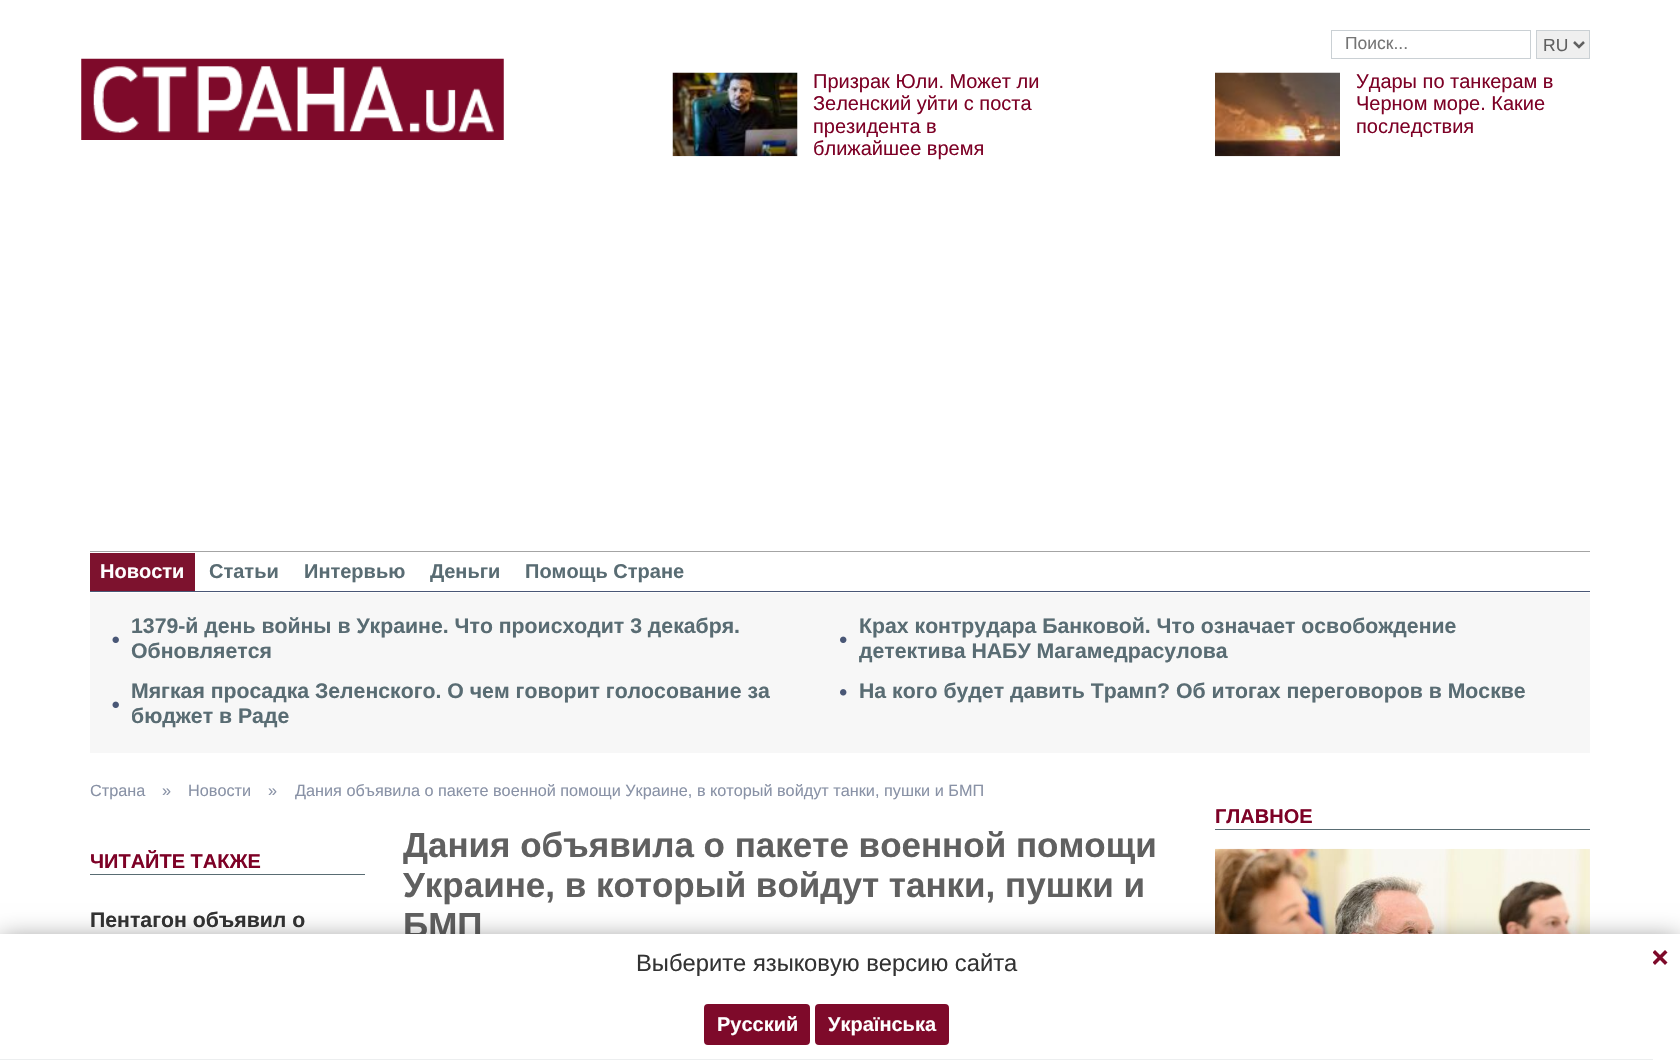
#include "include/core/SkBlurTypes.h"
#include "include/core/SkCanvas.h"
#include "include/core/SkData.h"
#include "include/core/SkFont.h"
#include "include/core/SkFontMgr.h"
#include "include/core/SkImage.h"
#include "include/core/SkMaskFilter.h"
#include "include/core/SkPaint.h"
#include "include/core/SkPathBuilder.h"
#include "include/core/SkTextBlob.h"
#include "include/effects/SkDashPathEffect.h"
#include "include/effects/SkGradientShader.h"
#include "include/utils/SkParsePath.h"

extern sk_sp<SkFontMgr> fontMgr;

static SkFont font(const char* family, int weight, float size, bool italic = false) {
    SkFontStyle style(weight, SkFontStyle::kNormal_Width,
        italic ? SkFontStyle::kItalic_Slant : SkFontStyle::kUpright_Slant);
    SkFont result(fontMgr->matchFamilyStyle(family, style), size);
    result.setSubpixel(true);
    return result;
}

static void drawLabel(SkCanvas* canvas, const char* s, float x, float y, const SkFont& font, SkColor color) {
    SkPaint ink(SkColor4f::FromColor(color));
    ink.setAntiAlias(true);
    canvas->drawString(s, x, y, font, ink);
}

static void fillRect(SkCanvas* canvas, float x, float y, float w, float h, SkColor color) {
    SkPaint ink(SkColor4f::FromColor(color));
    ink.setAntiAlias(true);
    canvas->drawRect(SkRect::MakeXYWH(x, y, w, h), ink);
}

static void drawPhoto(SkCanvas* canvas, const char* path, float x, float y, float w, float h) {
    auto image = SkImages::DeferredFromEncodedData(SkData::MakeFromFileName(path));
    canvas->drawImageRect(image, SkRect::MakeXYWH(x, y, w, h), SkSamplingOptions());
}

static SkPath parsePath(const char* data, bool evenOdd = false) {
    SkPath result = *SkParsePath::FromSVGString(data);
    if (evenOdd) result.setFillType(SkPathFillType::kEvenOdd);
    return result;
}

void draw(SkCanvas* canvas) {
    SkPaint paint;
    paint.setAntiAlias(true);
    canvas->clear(0xFFFFFFFF);
    paint.setStroke(true);
    paint.setStrokeWidth(1);
    paint.setColor(0xFFCAD0D4);
    canvas->drawRect(SkRect::MakeXYWH(1331.5f, 30.5f, 199, 28), paint);
    SkFont font1 = font("Liberation Sans", 400, 17.5f);
    drawLabel(canvas, "Поиск...", 1345, 49, font1, 0xFF757575);
    paint.setStroke(false);
    paint.setColor(0xFFEFEFEF);
    canvas->drawRect(SkRect::MakeXYWH(1536.5f, 30.5f, 53, 28), paint);
    paint.setStroke(true);
    paint.setColor(0xFFCAD0D4);
    canvas->drawRect(SkRect::MakeXYWH(1536.5f, 30.5f, 53, 28), paint);
    paint.setStrokeWidth(2.5f);
    paint.setColor(0xFF606060);
    canvas->drawPath(parsePath("M1574 42L1579 47L1584 42"), paint);
    drawLabel(canvas, "RU", 1543, 51, font1, 0xFF606060);
    drawPhoto(canvas, "assets/img1.png", 81, 58, 423, 82);
    drawPhoto(canvas, "assets/img2.png", 672, 72, 126, 85);
    SkFont font2 = font("Liberation Sans", 400, 20);
    drawLabel(canvas, "Призрак Юли. Может ли", 813, 88, font2, 0xFF7D0126);
    drawLabel(canvas, "Зеленский уйти с поста", 813, 110, font2, 0xFF7D0126);
    drawLabel(canvas, "президента в", 813, 133, font2, 0xFF7D0126);
    drawLabel(canvas, "ближайшее время", 813, 155, font2, 0xFF7D0126);
    drawPhoto(canvas, "assets/img3.png", 1215, 72, 125, 85);
    drawLabel(canvas, "Удары по танкерам в", 1356, 88, font2, 0xFF7D0126);
    drawLabel(canvas, "Черном море. Какие", 1356, 110, font2, 0xFF7D0126);
    drawLabel(canvas, "последствия", 1356, 133, font2, 0xFF7D0126);
    fillRect(canvas, 90, 551, 1500, 1, 0xFFA4A4A4);
    fillRect(canvas, 90, 591, 1500, 1, 0xFF495776);
    fillRect(canvas, 90, 553, 105, 38, 0xFF7D122E);
    SkFont font3 = font("Liberation Sans", 700, 20);
    drawLabel(canvas, "Новости", 100, 578, font3, 0xFFFFFFFF);
    drawLabel(canvas, "Статьи", 209, 578, font3, 0xFF596C73);
    drawLabel(canvas, "Интервью", 304, 578, font3, 0xFF596C73);
    drawLabel(canvas, "Деньги", 430, 578, font3, 0xFF596C73);
    drawLabel(canvas, "Помощь Стране", 525, 578, font3, 0xFF596C73);
    fillRect(canvas, 90, 593, 1500, 160, 0xFFF7F7F7);
    drawPhoto(canvas, "assets/img4.png", 112, 636, 7, 7);
    SkFont font4 = font("Liberation Sans", 700, 21.25f);
    drawLabel(canvas, "1379-й день войны в Украине. Что происходит 3 декабря.", 131, 633, font4, 0xFF596C73);
    drawLabel(canvas, "Обновляется", 131, 658, font4, 0xFF596C73);
    drawPhoto(canvas, "assets/img4.png", 112, 701, 7, 7);
    drawLabel(canvas, "Мягкая просадка Зеленского. О чем говорит голосование за", 131, 698, font4, 0xFF596C73);
    drawLabel(canvas, "бюджет в Раде", 131, 723, font4, 0xFF596C73);
    drawPhoto(canvas, "assets/img5.png", 840, 636, 7, 7);
    drawLabel(canvas, "Крах контрудара Банковой. Что означает освобождение", 859, 633, font4, 0xFF596C73);
    drawLabel(canvas, "детектива НАБУ Магамедрасулова", 859, 658, font4, 0xFF596C73);
    drawPhoto(canvas, "assets/img6.png", 840, 689, 7, 7);
    drawLabel(canvas, "На кого будет давить Трамп? Об итогах переговоров в Москве", 859, 698, font4, 0xFF596C73);
    SkFont font5 = font("Liberation Sans", 400, 16.25f);
    drawLabel(canvas, "Страна", 90, 796, font5, 0xFF8992A6);
    drawLabel(canvas, "»", 162, 796, font5, 0xFF8992A6);
    drawLabel(canvas, "Новости", 188, 796, font5, 0xFF8992A6);
    drawLabel(canvas, "»", 268, 796, font5, 0xFF8992A6);
    drawLabel(canvas, "Дания объявила о пакете военной помощи Украине, в который войдут танки, пушки и БМП", 295, 796, font5, 0xFF8992A6);
    fillRect(canvas, 90, 874, 275, 1, 0xFF596C73);
    drawLabel(canvas, "ЧИТАЙТЕ ТАКЖЕ", 90, 868, font3, 0xFF7D0126);
    drawLabel(canvas, "Пентагон объявил о", 90, 927, font4, 0xFF333333);
    SkFont font6 = font("Liberation Sans", 700, 35);
    drawLabel(canvas, "Дания объявила о пакете военной помощи", 403, 857, font6, 0xFF606060);
    drawLabel(canvas, "Украине, в который войдут танки, пушки и", 403, 897, font6, 0xFF606060);
    drawLabel(canvas, "БМП", 403, 937, font6, 0xFF606060);
    fillRect(canvas, 1215, 829, 375, 1, 0xFF596C73);
    drawLabel(canvas, "ГЛАВНОЕ", 1215, 823, font3, 0xFF7D0126);
    drawPhoto(canvas, "assets/img7.png", 1215, 848, 375, 86);
    paint.setStroke(false);
    paint.setColor(0x80000000);
    paint.setMaskFilter(SkMaskFilter::MakeBlur(kNormal_SkBlurStyle, 12.5f));
    canvas->drawRect(SkRect::MakeXYWH(0, 940, 1680, 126), paint);
    paint.setMaskFilter(nullptr);
    fillRect(canvas, 0, 934, 1680, 126, 0xFFFFFFFF);
    fillRect(canvas, 0, 1059, 1653, 1, 0xFFECEEEF);
    SkFont font7 = font("Liberation Sans", 400, 23.75f);
    drawLabel(canvas, "Выберите языковую версию сайта", 636, 971, font7, 0xFF333333);
    paint.setColor(0xFF7E0A2A);
    canvas->drawRoundRect(SkRect::MakeXYWH(705.5f, 1005.5f, 103, 38), 2.5f, 2.5f, paint);
    paint.setStroke(true);
    paint.setStrokeWidth(3);
    canvas->drawRoundRect(SkRect::MakeXYWH(705.5f, 1005.5f, 103, 38), 2.5f, 2.5f, paint);
    drawLabel(canvas, "Русский", 717, 1031, font3, 0xFFFFFFFF);
    paint.setStroke(false);
    canvas->drawRoundRect(SkRect::MakeXYWH(816.5f, 1005.5f, 131, 38), 2.5f, 2.5f, paint);
    paint.setStroke(true);
    canvas->drawRoundRect(SkRect::MakeXYWH(816.5f, 1005.5f, 131, 38), 2.5f, 2.5f, paint);
    drawLabel(canvas, "Українська", 828, 1031, font3, 0xFFFFFFFF);
    drawPhoto(canvas, "assets/img8.png", 1653, 950, 15, 15);
}
